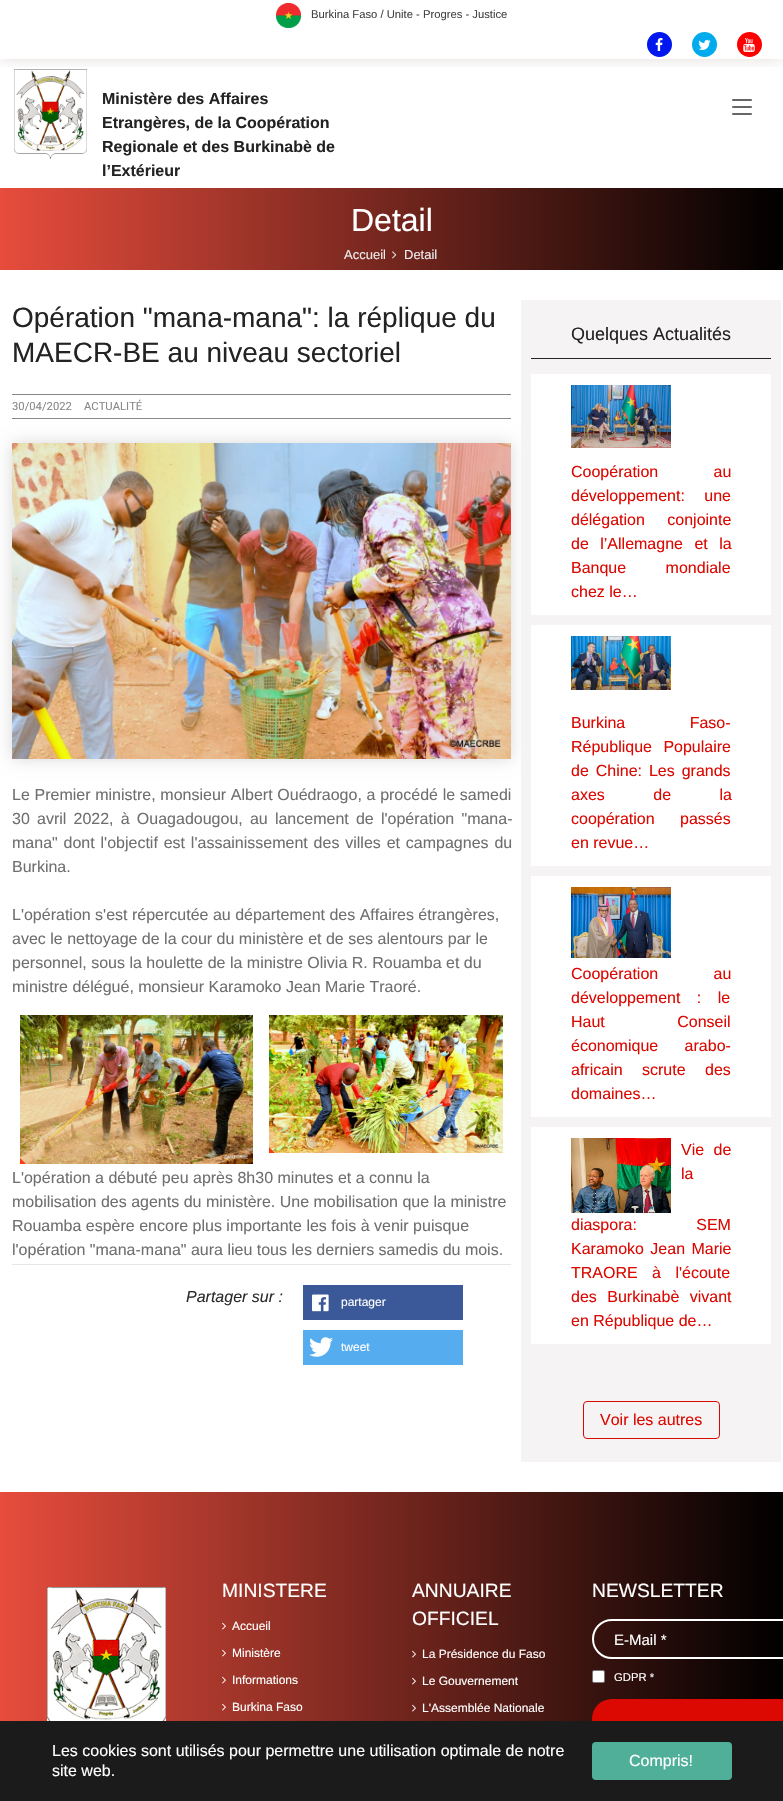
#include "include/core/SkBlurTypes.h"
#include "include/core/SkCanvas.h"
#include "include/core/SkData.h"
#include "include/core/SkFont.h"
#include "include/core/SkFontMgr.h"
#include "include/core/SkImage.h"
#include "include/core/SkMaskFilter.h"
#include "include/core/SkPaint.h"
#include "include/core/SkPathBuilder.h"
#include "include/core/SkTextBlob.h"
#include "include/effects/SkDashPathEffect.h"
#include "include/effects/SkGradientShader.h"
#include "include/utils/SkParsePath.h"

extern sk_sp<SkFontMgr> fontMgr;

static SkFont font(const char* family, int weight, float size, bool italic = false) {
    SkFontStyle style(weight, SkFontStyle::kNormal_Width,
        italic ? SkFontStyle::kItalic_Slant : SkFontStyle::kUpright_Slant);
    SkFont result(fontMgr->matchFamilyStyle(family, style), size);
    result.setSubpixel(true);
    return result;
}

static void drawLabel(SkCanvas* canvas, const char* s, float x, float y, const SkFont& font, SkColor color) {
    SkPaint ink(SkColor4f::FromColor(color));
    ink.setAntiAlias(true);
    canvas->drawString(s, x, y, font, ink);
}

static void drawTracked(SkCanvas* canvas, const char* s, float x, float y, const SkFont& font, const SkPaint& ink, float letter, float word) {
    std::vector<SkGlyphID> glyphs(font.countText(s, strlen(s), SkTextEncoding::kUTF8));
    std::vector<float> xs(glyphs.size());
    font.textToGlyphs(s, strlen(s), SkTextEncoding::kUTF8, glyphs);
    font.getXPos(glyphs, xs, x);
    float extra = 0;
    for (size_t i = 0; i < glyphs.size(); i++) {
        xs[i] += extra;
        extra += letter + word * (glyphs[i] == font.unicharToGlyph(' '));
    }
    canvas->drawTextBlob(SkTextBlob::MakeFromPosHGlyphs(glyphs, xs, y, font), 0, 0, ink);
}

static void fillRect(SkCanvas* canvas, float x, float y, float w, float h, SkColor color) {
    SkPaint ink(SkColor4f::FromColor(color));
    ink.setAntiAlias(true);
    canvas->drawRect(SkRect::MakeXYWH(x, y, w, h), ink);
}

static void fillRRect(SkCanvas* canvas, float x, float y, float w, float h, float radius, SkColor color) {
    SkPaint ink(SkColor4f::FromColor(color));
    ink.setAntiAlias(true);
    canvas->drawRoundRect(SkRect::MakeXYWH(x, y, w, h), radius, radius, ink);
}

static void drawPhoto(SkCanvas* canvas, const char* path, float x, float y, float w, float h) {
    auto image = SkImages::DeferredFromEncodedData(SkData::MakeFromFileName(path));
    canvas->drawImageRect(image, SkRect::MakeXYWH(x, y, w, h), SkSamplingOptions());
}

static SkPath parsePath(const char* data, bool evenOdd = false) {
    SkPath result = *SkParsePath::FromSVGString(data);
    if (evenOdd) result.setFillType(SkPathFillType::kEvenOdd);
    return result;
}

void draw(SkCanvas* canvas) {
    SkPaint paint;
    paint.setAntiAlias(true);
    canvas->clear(0xFFFFFFFF);
    canvas->save();
    canvas->clipRect(SkRect::MakeXYWH(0, 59, 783, 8));
    paint.setColor(0xFFE4DCDC);
    paint.setMaskFilter(SkMaskFilter::MakeBlur(kNormal_SkBlurStyle, 7));
    canvas->drawRect(SkRect::MakeXYWH(0, 0, 783, 59), paint);
    paint.setMaskFilter(nullptr);
    canvas->restore();
    drawPhoto(canvas, "assets/img1.png", 276, 3, 25, 25);
    SkFont font1 = font("Liberation Sans", 400, 11.25f);
    drawLabel(canvas, "Burkina Faso / Unite - Progres - Justice", 311, 18, font1, 0xFF444444);
    paint.setColor(0xFF0018ED);
    canvas->drawCircle(659.5f, 44.5f, 12.5f, paint);
    drawPhoto(canvas, "assets/img2.png", 655, 38, 8, 13);
    paint.setColor(0xFF00ABED);
    canvas->drawCircle(704.5f, 44.5f, 12.5f, paint);
    drawPhoto(canvas, "assets/img3.png", 698, 40, 13, 10);
    paint.setColor(0xFFFF0000);
    canvas->drawCircle(749.5f, 44.5f, 12.5f, paint);
    drawPhoto(canvas, "assets/img4.png", 743, 38, 12, 14);
    fillRect(canvas, 3, 67, 777, 2, 0xFFFFFFFF);
    drawPhoto(canvas, "assets/img5.png", 14, 69, 73, 90);
    SkFont font2 = font("Liberation Sans", 700, 16);
    drawLabel(canvas, "Ministère des Affaires", 102, 104, font2, 0xFF232323);
    drawLabel(canvas, "Etrangères, de la Coopération", 102, 128, font2, 0xFF232323);
    drawLabel(canvas, "Regionale et des Burkinabè de", 102, 152, font2, 0xFF232323);
    drawLabel(canvas, "l’Extérieur", 102, 176, font2, 0xFF232323);
    fillRRect(canvas, 732, 99, 20, 2, 1, 0xFF666666);
    fillRRect(canvas, 732, 106, 20, 2, 1, 0xFF666666);
    fillRRect(canvas, 732, 113, 20, 2, 1, 0xFF666666);
    {
        const SkColor colors[] = {0xFFE74C3C, 0xFF000000};
        const float stops[] = {0, 1};
        const SkPoint ends[] = {{0, 229}, {783, 229}};
        paint.setShader(SkGradientShader::MakeLinear(ends, colors, stops, 2, SkTileMode::kClamp));
        paint.setAlpha(255);
    }
    canvas->drawRect(SkRect::MakeXYWH(0, 188, 783, 82), paint);
    SkFont font3 = font("Liberation Sans", 400, 32);
    drawLabel(canvas, "Detail", 351, 231, font3, 0xFFFFFFFF);
    SkFont font4 = font("Liberation Sans", 400, 13);
    drawLabel(canvas, "Accueil", 344, 259, font4, 0xFFECEBEB);
    drawPhoto(canvas, "assets/img6.png", 392, 251, 5, 8);
    drawLabel(canvas, "Detail", 404, 259, font4, 0xFFECEBEB);
    SkFont font5 = font("Liberation Sans", 400, 28);
    drawLabel(canvas, "Opération \"mana-mana\": la réplique du", 12, 327, font5, 0xFF232323);
    drawLabel(canvas, "MAECR-BE au niveau sectoriel", 12, 362, font5, 0xFF232323);
    fillRect(canvas, 12, 394, 499, 1, 0xFF888888);
    fillRect(canvas, 12, 418, 499, 1, 0xFF888888);
    SkFont font6 = font("Roboto", 400, 11.25f);
    drawLabel(canvas, "30/04/2022", 12, 410, font6, 0xFF888888);
    drawLabel(canvas, "ACTUALITÉ", 84, 410, font6, 0xFF888888);
    paint.setShader(nullptr);
    paint.setColor(0x26000000);
    paint.setMaskFilter(SkMaskFilter::MakeBlur(kNormal_SkBlurStyle, 7.5f));
    canvas->drawRect(SkRect::MakeXYWH(12, 443, 499, 316), paint);
    paint.setMaskFilter(nullptr);
    drawPhoto(canvas, "assets/img7.png", 12, 443, 499, 316);
    SkFont font7 = font("Liberation Sans", 400, 16);
    paint.setColor(0xFF6F6F6F);
    drawTracked(canvas, "Le Premier ministre, monsieur Albert Ouédraogo, a procédé le samedi", 12, 800, font7, paint, 0, 0.25f);
    drawTracked(canvas, "30 avril 2022, à Ouagadougou, au lancement de l'opération \"mana-", 12, 824, font7, paint, 0, 2.75f);
    drawTracked(canvas, "mana\" dont l'objectif est l'assainissement des villes et campagnes du", 12, 848, font7, paint, 0, 1.4f);
    drawLabel(canvas, "Burkina.", 12, 872, font7, 0xFF6F6F6F);
    drawLabel(canvas, "L'opération s'est répercutée au département des Affaires étrangères,", 12, 920, font7, 0xFF6F6F6F);
    drawLabel(canvas, "avec le nettoyage de la cour du ministère et de ses alentours par le", 12, 944, font7, 0xFF6F6F6F);
    drawLabel(canvas, "personnel, sous la houlette de la ministre Olivia R. Rouamba et du", 12, 968, font7, 0xFF6F6F6F);
    drawLabel(canvas, "ministre délégué, monsieur Karamoko Jean Marie Traoré.", 12, 992, font7, 0xFF6F6F6F);
    drawPhoto(canvas, "assets/img8.png", 20, 1015, 233, 149);
    paint.setColor(0xFFFD3A13);
    canvas->drawPath(parsePath("M26 1164H20V1158Z"), paint);
    drawPhoto(canvas, "assets/img9.png", 269, 1015, 234, 138);
    canvas->drawPath(parsePath("M275 1153H269V1147Z"), paint);
    drawLabel(canvas, "L'opération a débuté peu après 8h30 minutes et a connu la", 12, 1183, font7, 0xFF6F6F6F);
    drawLabel(canvas, "mobilisation des agents du ministère. Une mobilisation que la ministre", 12, 1207, font7, 0xFF6F6F6F);
    drawLabel(canvas, "Rouamba espère encore plus importante les fois à venir puisque", 12, 1231, font7, 0xFF6F6F6F);
    drawLabel(canvas, "l'opération \"mana-mana\" aura lieu tous les derniers samedis du mois.", 12, 1255, font7, 0xFF6F6F6F);
    fillRect(canvas, 12, 1264, 499, 1, 0xFFE6E6E6);
    SkFont font8 = font("Liberation Sans", 400, 16, true);
    drawLabel(canvas, "Partager sur :", 186, 1302, font8, 0xFF2B2B2B);
    fillRect(canvas, 303, 1285, 160, 35, 0xFF3B5998);
    drawPhoto(canvas, "assets/img10.png", 312, 1294, 17, 18);
    SkFont font9 = font("Liberation Sans", 400, 12);
    drawLabel(canvas, "partager", 341, 1306, font9, 0xFFFFFFFF);
    fillRect(canvas, 303, 1330, 160, 35, 0xFF55ACEE);
    drawPhoto(canvas, "assets/img11.png", 309, 1337, 24, 20);
    drawLabel(canvas, "tweet", 341, 1351, font9, 0xFFFFFFFF);
    fillRect(canvas, 521, 300, 260, 1162, 0xFFF5F3F3);
    fillRect(canvas, 531, 358, 240, 1, 0xFF232323);
    SkFont font10 = font("Liberation Sans", 400, 18);
    drawLabel(canvas, "Quelques Actualités", 571, 340, font10, 0xFF232323);
    fillRect(canvas, 531, 374, 240, 241, 0xFFFFFFFF);
    drawPhoto(canvas, "assets/img12.png", 571, 385, 100, 63);
    paint.setColor(0xFFDC0902);
    drawTracked(canvas, "Coopération au", 571, 477, font7, paint, 0, 51);
    drawTracked(canvas, "développement: une", 571, 501, font7, paint, 0, 15);
    drawTracked(canvas, "délégation conjointe", 571, 525, font7, paint, 0, 18);
    drawTracked(canvas, "de l’Allemagne et la", 571, 549, font7, paint, 0, 7);
    drawTracked(canvas, "Banque mondiale", 571, 573, font7, paint, 0, 35);
    drawLabel(canvas, "chez le…", 571, 597, font7, 0xFFDC0902);
    fillRect(canvas, 531, 625, 240, 241, 0xFFFFFFFF);
    drawPhoto(canvas, "assets/img13.png", 571, 636, 100, 54);
    drawTracked(canvas, "Burkina Faso-", 571, 728, font7, paint, 0, 60);
    drawTracked(canvas, "République Populaire", 571, 752, font7, paint, 0, 7);
    drawTracked(canvas, "de Chine: Les grands", 571, 776, font7, paint, 0, 2.5f);
    drawTracked(canvas, "axes de la", 571, 800, font7, paint, 0, 44);
    drawTracked(canvas, "coopération passés", 571, 824, font7, paint, 0, 21);
    drawLabel(canvas, "en revue…", 571, 848, font7, 0xFFDC0902);
    fillRect(canvas, 531, 876, 240, 241, 0xFFFFFFFF);
    drawPhoto(canvas, "assets/img14.png", 571, 887, 100, 71);
    drawTracked(canvas, "Coopération au", 571, 979, font7, paint, 0, 51);
    drawTracked(canvas, "développement : le", 571, 1003, font7, paint, 0, 12);
    drawTracked(canvas, "Haut Conseil", 571, 1027, font7, paint, 0, 68);
    drawTracked(canvas, "économique arabo-", 571, 1051, font7, paint, 0, 22);
    drawTracked(canvas, "africain scrute des", 571, 1075, font7, paint, 0, 15);
    drawLabel(canvas, "domaines…", 571, 1099, font7, 0xFFDC0902);
    fillRect(canvas, 531, 1127, 240, 217, 0xFFFFFFFF);
    drawPhoto(canvas, "assets/img15.png", 571, 1138, 100, 75);
    drawTracked(canvas, "Vie de", 681, 1155, font7, paint, 0, 5);
    drawLabel(canvas, "la", 681, 1179, font7, 0xFFDC0902);
    drawTracked(canvas, "diaspora: SEM", 571, 1230, font7, paint, 0, 55);
    drawTracked(canvas, "Karamoko Jean Marie", 571, 1254, font7, paint, 0, 2);
    drawTracked(canvas, "TRAORE à l'écoute", 571, 1278, font7, paint, 0, 10);
    drawTracked(canvas, "des Burkinabè vivant", 571, 1302, font7, paint, 0, 6);
    drawLabel(canvas, "en République de…", 571, 1326, font7, 0xFFDC0902);
    paint.setStroke(true);
    paint.setStrokeWidth(1);
    canvas->drawRoundRect(SkRect::MakeXYWH(583.5f, 1401.5f, 136, 37), 3.5f, 3.5f, paint);
    drawLabel(canvas, "Voir les autres", 600, 1425, font7, 0xFFDC0902);
    paint.setStroke(false);
    {
        const SkColor colors[] = {0xFFE74C3C, 0xFF000000};
        const float stops[] = {0, 1};
        const SkPoint ends[] = {{0, 1669}, {783, 1669}};
        paint.setShader(SkGradientShader::MakeLinear(ends, colors, stops, 2, SkTileMode::kClamp));
        paint.setAlpha(255);
    }
    canvas->drawRect(SkRect::MakeXYWH(0, 1492, 783, 229), paint);
    drawPhoto(canvas, "assets/img16.png", 47, 1587, 119, 134);
    SkFont font11 = font("Liberation Sans", 400, 19.25f);
    drawLabel(canvas, "MINISTERE", 222, 1597, font11, 0xFFFFFFFF);
    drawPhoto(canvas, "assets/img17.png", 222, 1622, 4, 8);
    drawLabel(canvas, "Accueil", 232, 1630, font9, 0xFFFFFFFF);
    drawPhoto(canvas, "assets/img17.png", 222, 1649, 4, 8);
    drawLabel(canvas, "Ministère", 232, 1657, font9, 0xFFFFFFFF);
    drawPhoto(canvas, "assets/img17.png", 222, 1676, 4, 8);
    drawLabel(canvas, "Informations", 232, 1684, font9, 0xFFFFFFFF);
    drawPhoto(canvas, "assets/img17.png", 222, 1703, 4, 8);
    drawLabel(canvas, "Burkina Faso", 232, 1711, font9, 0xFFFFFFFF);
    drawLabel(canvas, "ANNUAIRE", 412, 1597, font11, 0xFFFFFFFF);
    drawLabel(canvas, "OFFICIEL", 412, 1625, font11, 0xFFFFFFFF);
    drawPhoto(canvas, "assets/img18.png", 412, 1650, 4, 8);
    drawLabel(canvas, "La Présidence du Faso", 422, 1658, font9, 0xFFFFFFFF);
    drawPhoto(canvas, "assets/img18.png", 412, 1677, 4, 8);
    drawLabel(canvas, "Le Gouvernement", 422, 1685, font9, 0xFFFFFFFF);
    drawPhoto(canvas, "assets/img18.png", 412, 1704, 4, 8);
    drawLabel(canvas, "L'Assemblée Nationale", 422, 1712, font9, 0xFFFFFFFF);
    drawLabel(canvas, "NEWSLETTER", 592, 1597, font11, 0xFFFFFFFF);
    paint.setStroke(true);
    paint.setStrokeWidth(2);
    paint.setShader(nullptr);
    paint.setColor(0xFFFFFFFF);
    canvas->drawRoundRect(SkRect::MakeXYWH(593, 1620, 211, 38), 19, 19, paint);
    SkFont font12 = font("Liberation Sans", 400, 15);
    drawLabel(canvas, "E-Mail *", 614, 1645, font12, 0xFFFFFFFF);
    paint.setStroke(false);
    canvas->drawRoundRect(SkRect::MakeXYWH(592.5f, 1670.5f, 12, 12), 1.5f, 1.5f, paint);
    paint.setStroke(true);
    paint.setStrokeWidth(1);
    paint.setColor(0xFF767676);
    canvas->drawRoundRect(SkRect::MakeXYWH(592.5f, 1670.5f, 12, 12), 1.5f, 1.5f, paint);
    drawLabel(canvas, "GDPR *", 614, 1681, font1, 0xFFFFFFFF);
    fillRRect(canvas, 592, 1699, 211, 40, 20, 0xFFDC0902);
    fillRect(canvas, 0, 1721, 783, 80, 0xFF1B1B1B);
    drawLabel(canvas, "Les cookies sont utilisés pour permettre une utilisation optimale de notre", 52, 1756, font7, 0xFFFFFFFF);
    drawLabel(canvas, "site web.", 52, 1776, font7, 0xFFFFFFFF);
    fillRRect(canvas, 592, 1742, 140, 38, 4, 0xFF4FAF98);
    drawLabel(canvas, "Compris!", 629, 1766, font7, 0xFFFFFFFF);
}
